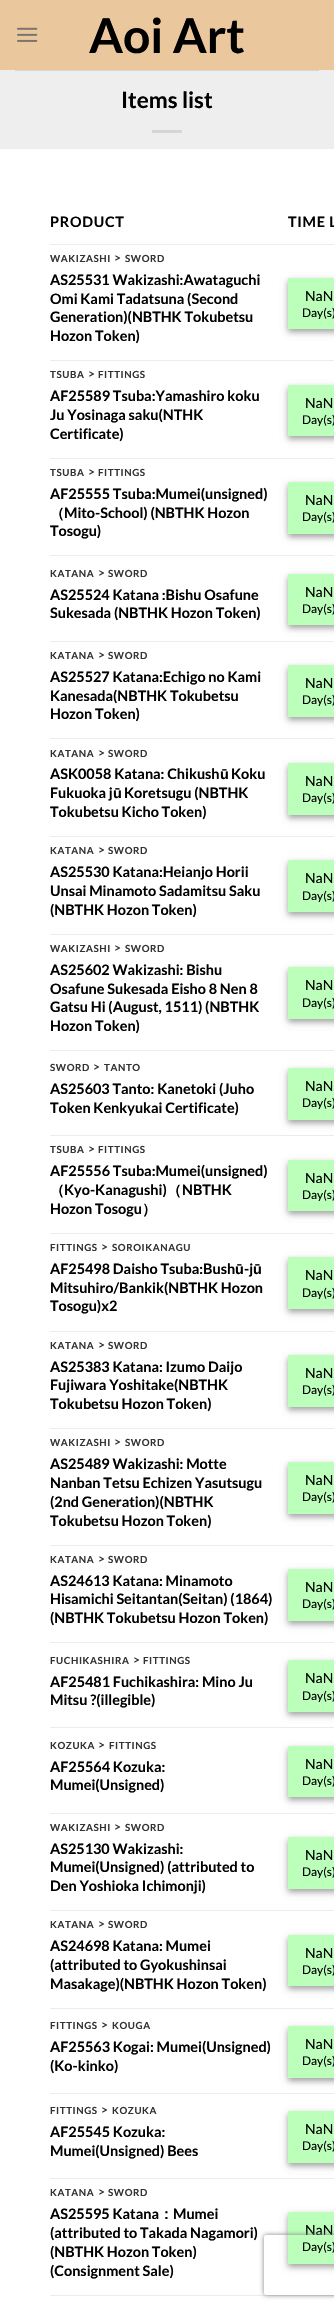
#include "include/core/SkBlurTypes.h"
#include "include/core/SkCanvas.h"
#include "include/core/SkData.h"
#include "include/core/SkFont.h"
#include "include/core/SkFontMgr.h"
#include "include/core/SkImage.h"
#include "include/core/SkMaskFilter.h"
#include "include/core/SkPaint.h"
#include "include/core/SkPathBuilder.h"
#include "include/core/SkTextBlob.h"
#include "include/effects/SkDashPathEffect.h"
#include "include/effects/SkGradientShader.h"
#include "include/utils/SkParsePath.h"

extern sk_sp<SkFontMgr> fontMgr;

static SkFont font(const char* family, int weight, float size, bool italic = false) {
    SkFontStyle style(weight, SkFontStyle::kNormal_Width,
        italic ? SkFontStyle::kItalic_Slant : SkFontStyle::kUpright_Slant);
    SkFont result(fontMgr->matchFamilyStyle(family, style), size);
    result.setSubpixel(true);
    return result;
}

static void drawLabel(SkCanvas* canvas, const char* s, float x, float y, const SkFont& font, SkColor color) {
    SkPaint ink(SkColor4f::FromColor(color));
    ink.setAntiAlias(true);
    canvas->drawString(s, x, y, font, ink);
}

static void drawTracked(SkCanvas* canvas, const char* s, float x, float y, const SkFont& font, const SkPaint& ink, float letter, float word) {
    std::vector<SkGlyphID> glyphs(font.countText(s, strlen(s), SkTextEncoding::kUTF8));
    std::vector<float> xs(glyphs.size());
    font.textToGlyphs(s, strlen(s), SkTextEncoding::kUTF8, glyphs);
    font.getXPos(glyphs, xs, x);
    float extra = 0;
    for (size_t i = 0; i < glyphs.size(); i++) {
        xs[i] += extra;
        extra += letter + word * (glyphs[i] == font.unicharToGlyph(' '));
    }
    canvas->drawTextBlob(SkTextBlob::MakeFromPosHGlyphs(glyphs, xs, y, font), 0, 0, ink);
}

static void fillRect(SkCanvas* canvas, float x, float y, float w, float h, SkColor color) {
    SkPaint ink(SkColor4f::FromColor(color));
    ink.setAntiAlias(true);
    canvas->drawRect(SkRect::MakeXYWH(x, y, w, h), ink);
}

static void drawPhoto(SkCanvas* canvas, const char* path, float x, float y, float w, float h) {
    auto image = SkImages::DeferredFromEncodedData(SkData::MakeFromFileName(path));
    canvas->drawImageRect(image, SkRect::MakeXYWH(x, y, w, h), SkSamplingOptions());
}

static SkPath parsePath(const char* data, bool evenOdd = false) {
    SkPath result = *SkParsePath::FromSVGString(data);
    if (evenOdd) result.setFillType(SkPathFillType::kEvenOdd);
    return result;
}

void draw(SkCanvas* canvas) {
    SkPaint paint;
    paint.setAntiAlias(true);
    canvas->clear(0xFFEEEEEE);
    fillRect(canvas, 0, 0, 334, 70, 0xFFEBC79E);
    drawPhoto(canvas, "assets/img1.png", 17, 27, 21, 15);
    SkFont font1 = font("Lato", 700, 48);
    drawLabel(canvas, "Aoi Art", 89, 53, font1, 0xFF000000);
    fillRect(canvas, 15, 70, 304, 1, 0xFFD6D6D6);
    SkFont font2 = font("Lato", 700, 22.5f);
    drawLabel(canvas, "Items list", 121, 108, font2, 0xFF000000);
    fillRect(canvas, 152, 130, 30, 3, 0xFFD6D6D6);
    fillRect(canvas, 0, 149, 334, 2160, 0xFFFFFFFF);
    fillRect(canvas, 50, 244, 284, 1, 0xFFECECEC);
    SkFont font3 = font("Lato", 700, 14.4f);
    paint.setColor(0xFF000000);
    drawTracked(canvas, "PRODUCT", 50, 227, font3, paint, 0.75f, 0);
    drawTracked(canvas, "TIME L", 288, 227, font3, paint, 0.75f, 0);
    fillRect(canvas, 50, 360, 284, 1, 0xFFECECEC);
    SkFont font4 = font("Lato", 700, 9.75f);
    paint.setColor(0xFF333333);
    drawTracked(canvas, "WAKIZASHI", 50, 262, font4, paint, 0.6f, 0);
    SkFont font5 = font("Lato", 700, 12);
    drawTracked(canvas, ">", 114, 262, font5, paint, 0.6f, 0);
    drawTracked(canvas, "SWORD", 125, 262, font4, paint, 0.6f, 0);
    drawLabel(canvas, "AS25531 Wakizashi:Awataguchi", 50, 285, font3, 0xFF000000);
    drawLabel(canvas, "Omi Kami Tadatsuna (Second", 50, 304, font3, 0xFF000000);
    drawLabel(canvas, "Generation)(NBTHK Tokubetsu", 50, 322, font3, 0xFF000000);
    drawLabel(canvas, "Hozon Token)", 50, 341, font3, 0xFF000000);
    paint.setColor(0x3B000000);
    paint.setMaskFilter(SkMaskFilter::MakeBlur(kNormal_SkBlurStyle, 3));
    canvas->drawRect(SkRect::MakeXYWH(288, 281, 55, 51), paint);
    paint.setMaskFilter(nullptr);
    paint.setColor(0x29000000);
    paint.setMaskFilter(SkMaskFilter::MakeBlur(kNormal_SkBlurStyle, 3));
    canvas->drawRect(SkRect::MakeXYWH(288, 281, 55, 51), paint);
    paint.setMaskFilter(nullptr);
    fillRect(canvas, 288, 278, 46, 51, 0xFFBBFFBB);
    SkFont font6 = font("Lato", 400, 14);
    drawLabel(canvas, "NaN", 305, 301, font6, 0xFF000000);
    SkFont font7 = font("Lato", 400, 12);
    drawLabel(canvas, "Day(s)", 302, 317, font7, 0xFF000000);
    fillRect(canvas, 50, 458, 284, 1, 0xFFECECEC);
    paint.setColor(0xFF333333);
    drawTracked(canvas, "TSUBA", 50, 378, font4, paint, 0.6f, 0);
    drawTracked(canvas, ">", 88, 378, font5, paint, 0.6f, 0);
    drawTracked(canvas, "FITTINGS", 98, 378, font4, paint, 0.6f, 0);
    drawLabel(canvas, "AF25589 Tsuba:Yamashiro koku", 50, 401, font3, 0xFF000000);
    drawLabel(canvas, "Ju Yosinaga saku(NTHK", 50, 420, font3, 0xFF000000);
    drawLabel(canvas, "Certificate)", 50, 439, font3, 0xFF000000);
    paint.setColor(0x3B000000);
    paint.setMaskFilter(SkMaskFilter::MakeBlur(kNormal_SkBlurStyle, 3));
    canvas->drawRect(SkRect::MakeXYWH(288, 388, 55, 51), paint);
    paint.setMaskFilter(nullptr);
    paint.setColor(0x29000000);
    paint.setMaskFilter(SkMaskFilter::MakeBlur(kNormal_SkBlurStyle, 3));
    canvas->drawRect(SkRect::MakeXYWH(288, 388, 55, 51), paint);
    paint.setMaskFilter(nullptr);
    fillRect(canvas, 288, 385, 46, 51, 0xFFBBFFBB);
    drawLabel(canvas, "NaN", 305, 408, font6, 0xFF000000);
    drawLabel(canvas, "Day(s)", 302, 424, font7, 0xFF000000);
    fillRect(canvas, 50, 555, 284, 1, 0xFFECECEC);
    paint.setColor(0xFF333333);
    drawTracked(canvas, "TSUBA", 50, 476, font4, paint, 0.6f, 0);
    drawTracked(canvas, ">", 88, 476, font5, paint, 0.6f, 0);
    drawTracked(canvas, "FITTINGS", 98, 476, font4, paint, 0.6f, 0);
    drawLabel(canvas, "AF25555 Tsuba:Mumei(unsigned)", 50, 499, font3, 0xFF000000);
    SkFont font8 = font("WenQuanYi Zen Hei", 700, 14.4f);
    drawLabel(canvas, "（", 50, 518, font8, 0xFF000000);
    drawLabel(canvas, "Mito-School) (NBTHK Hozon", 64, 518, font3, 0xFF000000);
    drawLabel(canvas, "Tosogu)", 50, 536, font3, 0xFF000000);
    paint.setColor(0x3B000000);
    paint.setMaskFilter(SkMaskFilter::MakeBlur(kNormal_SkBlurStyle, 3));
    canvas->drawRect(SkRect::MakeXYWH(288, 485, 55, 52), paint);
    paint.setMaskFilter(nullptr);
    paint.setColor(0x29000000);
    paint.setMaskFilter(SkMaskFilter::MakeBlur(kNormal_SkBlurStyle, 3));
    canvas->drawRect(SkRect::MakeXYWH(288, 485, 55, 52), paint);
    paint.setMaskFilter(nullptr);
    fillRect(canvas, 288, 482, 46, 52, 0xFFBBFFBB);
    drawLabel(canvas, "NaN", 305, 505, font6, 0xFF000000);
    drawLabel(canvas, "Day(s)", 302, 521, font7, 0xFF000000);
    fillRect(canvas, 50, 641, 284, 1, 0xFFECECEC);
    paint.setColor(0xFF333333);
    drawTracked(canvas, "KATANA", 50, 577, font4, paint, 0.6f, 0);
    drawTracked(canvas, ">", 98, 577, font5, paint, 0.6f, 0);
    drawTracked(canvas, "SWORD", 108, 577, font4, paint, 0.6f, 0);
    drawLabel(canvas, "AS25524 Katana :Bishu Osafune", 50, 600, font3, 0xFF000000);
    drawLabel(canvas, "Sukesada (NBTHK Hozon Token)", 50, 618, font3, 0xFF000000);
    paint.setColor(0x3B000000);
    paint.setMaskFilter(SkMaskFilter::MakeBlur(kNormal_SkBlurStyle, 3));
    canvas->drawRect(SkRect::MakeXYWH(288, 577, 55, 51), paint);
    paint.setMaskFilter(nullptr);
    paint.setColor(0x29000000);
    paint.setMaskFilter(SkMaskFilter::MakeBlur(kNormal_SkBlurStyle, 3));
    canvas->drawRect(SkRect::MakeXYWH(288, 577, 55, 51), paint);
    paint.setMaskFilter(nullptr);
    fillRect(canvas, 288, 574, 46, 51, 0xFFBBFFBB);
    drawLabel(canvas, "NaN", 305, 597, font6, 0xFF000000);
    drawLabel(canvas, "Day(s)", 302, 613, font7, 0xFF000000);
    fillRect(canvas, 50, 738, 284, 1, 0xFFECECEC);
    paint.setColor(0xFF333333);
    drawTracked(canvas, "KATANA", 50, 659, font4, paint, 0.6f, 0);
    drawTracked(canvas, ">", 98, 659, font5, paint, 0.6f, 0);
    drawTracked(canvas, "SWORD", 108, 659, font4, paint, 0.6f, 0);
    drawLabel(canvas, "AS25527 Katana:Echigo no Kami", 50, 682, font3, 0xFF000000);
    drawLabel(canvas, "Kanesada(NBTHK Tokubetsu", 50, 701, font3, 0xFF000000);
    drawLabel(canvas, "Hozon Token)", 50, 719, font3, 0xFF000000);
    paint.setColor(0x3B000000);
    paint.setMaskFilter(SkMaskFilter::MakeBlur(kNormal_SkBlurStyle, 3));
    canvas->drawRect(SkRect::MakeXYWH(288, 668, 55, 52), paint);
    paint.setMaskFilter(nullptr);
    paint.setColor(0x29000000);
    paint.setMaskFilter(SkMaskFilter::MakeBlur(kNormal_SkBlurStyle, 3));
    canvas->drawRect(SkRect::MakeXYWH(288, 668, 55, 52), paint);
    paint.setMaskFilter(nullptr);
    fillRect(canvas, 288, 665, 46, 52, 0xFFBBFFBB);
    drawLabel(canvas, "NaN", 305, 688, font6, 0xFF000000);
    drawLabel(canvas, "Day(s)", 302, 704, font7, 0xFF000000);
    fillRect(canvas, 50, 836, 284, 1, 0xFFECECEC);
    paint.setColor(0xFF333333);
    drawTracked(canvas, "KATANA", 50, 757, font4, paint, 0.6f, 0);
    drawTracked(canvas, ">", 98, 757, font5, paint, 0.6f, 0);
    drawTracked(canvas, "SWORD", 108, 757, font4, paint, 0.6f, 0);
    drawLabel(canvas, "ASK0058 Katana: Chikush", 50, 779, font3, 0xFF000000);
    SkFont font9 = font("Liberation Sans", 700, 14.4f);
    drawLabel(canvas, "ū", 220, 779, font9, 0xFF000000);
    drawLabel(canvas, "Koku", 231, 779, font3, 0xFF000000);
    drawLabel(canvas, "Fukuoka j", 50, 798, font3, 0xFF000000);
    drawLabel(canvas, "ū", 113, 798, font9, 0xFF000000);
    drawLabel(canvas, "Koretsugu (NBTHK", 124, 798, font3, 0xFF000000);
    drawLabel(canvas, "Tokubetsu Kicho Token)", 50, 817, font3, 0xFF000000);
    paint.setColor(0x3B000000);
    paint.setMaskFilter(SkMaskFilter::MakeBlur(kNormal_SkBlurStyle, 3));
    canvas->drawRect(SkRect::MakeXYWH(288, 766, 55, 52), paint);
    paint.setMaskFilter(nullptr);
    paint.setColor(0x29000000);
    paint.setMaskFilter(SkMaskFilter::MakeBlur(kNormal_SkBlurStyle, 3));
    canvas->drawRect(SkRect::MakeXYWH(288, 766, 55, 52), paint);
    paint.setMaskFilter(nullptr);
    fillRect(canvas, 288, 763, 46, 52, 0xFFBBFFBB);
    drawLabel(canvas, "NaN", 305, 786, font6, 0xFF000000);
    drawLabel(canvas, "Day(s)", 302, 802, font7, 0xFF000000);
    fillRect(canvas, 50, 934, 284, 1, 0xFFECECEC);
    paint.setColor(0xFF333333);
    drawTracked(canvas, "KATANA", 50, 854, font4, paint, 0.6f, 0);
    drawTracked(canvas, ">", 98, 854, font5, paint, 0.6f, 0);
    drawTracked(canvas, "SWORD", 108, 854, font4, paint, 0.6f, 0);
    drawLabel(canvas, "AS25530 Katana:Heianjo Horii", 50, 877, font3, 0xFF000000);
    drawLabel(canvas, "Unsai Minamoto Sadamitsu Saku", 50, 896, font3, 0xFF000000);
    drawLabel(canvas, "(NBTHK Hozon Token)", 50, 915, font3, 0xFF000000);
    paint.setColor(0x3B000000);
    paint.setMaskFilter(SkMaskFilter::MakeBlur(kNormal_SkBlurStyle, 3));
    canvas->drawRect(SkRect::MakeXYWH(288, 863, 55, 52), paint);
    paint.setMaskFilter(nullptr);
    paint.setColor(0x29000000);
    paint.setMaskFilter(SkMaskFilter::MakeBlur(kNormal_SkBlurStyle, 3));
    canvas->drawRect(SkRect::MakeXYWH(288, 863, 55, 52), paint);
    paint.setMaskFilter(nullptr);
    fillRect(canvas, 288, 860, 46, 52, 0xFFBBFFBB);
    drawLabel(canvas, "NaN", 305, 883, font6, 0xFF000000);
    drawLabel(canvas, "Day(s)", 302, 900, font7, 0xFF000000);
    fillRect(canvas, 50, 1050, 284, 1, 0xFFECECEC);
    paint.setColor(0xFF333333);
    drawTracked(canvas, "WAKIZASHI", 50, 952, font4, paint, 0.6f, 0);
    drawTracked(canvas, ">", 114, 952, font5, paint, 0.6f, 0);
    drawTracked(canvas, "SWORD", 125, 952, font4, paint, 0.6f, 0);
    drawLabel(canvas, "AS25602 Wakizashi: Bishu", 50, 975, font3, 0xFF000000);
    drawLabel(canvas, "Osafune Sukesada Eisho 8 Nen 8", 50, 994, font3, 0xFF000000);
    drawLabel(canvas, "Gatsu Hi (August, 1511) (NBTHK", 50, 1012, font3, 0xFF000000);
    drawLabel(canvas, "Hozon Token)", 50, 1031, font3, 0xFF000000);
    paint.setColor(0x3B000000);
    paint.setMaskFilter(SkMaskFilter::MakeBlur(kNormal_SkBlurStyle, 3));
    canvas->drawRect(SkRect::MakeXYWH(288, 970, 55, 52), paint);
    paint.setMaskFilter(nullptr);
    paint.setColor(0x29000000);
    paint.setMaskFilter(SkMaskFilter::MakeBlur(kNormal_SkBlurStyle, 3));
    canvas->drawRect(SkRect::MakeXYWH(288, 970, 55, 52), paint);
    paint.setMaskFilter(nullptr);
    fillRect(canvas, 288, 967, 46, 52, 0xFFBBFFBB);
    drawLabel(canvas, "NaN", 305, 990, font6, 0xFF000000);
    drawLabel(canvas, "Day(s)", 302, 1007, font7, 0xFF000000);
    fillRect(canvas, 50, 1135, 284, 1, 0xFFECECEC);
    paint.setColor(0xFF333333);
    drawTracked(canvas, "SWORD", 50, 1071, font4, paint, 0.6f, 0);
    drawTracked(canvas, ">", 93, 1071, font5, paint, 0.6f, 0);
    drawTracked(canvas, "TANTO", 104, 1071, font4, paint, 0.6f, 0);
    drawLabel(canvas, "AS25603 Tanto: Kanetoki (Juho", 50, 1094, font3, 0xFF000000);
    drawLabel(canvas, "Token Kenkyukai Certificate)", 50, 1113, font3, 0xFF000000);
    paint.setColor(0x3B000000);
    paint.setMaskFilter(SkMaskFilter::MakeBlur(kNormal_SkBlurStyle, 3));
    canvas->drawRect(SkRect::MakeXYWH(288, 1071, 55, 52), paint);
    paint.setMaskFilter(nullptr);
    paint.setColor(0x29000000);
    paint.setMaskFilter(SkMaskFilter::MakeBlur(kNormal_SkBlurStyle, 3));
    canvas->drawRect(SkRect::MakeXYWH(288, 1071, 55, 52), paint);
    paint.setMaskFilter(nullptr);
    fillRect(canvas, 288, 1068, 46, 52, 0xFFBBFFBB);
    drawLabel(canvas, "NaN", 305, 1091, font6, 0xFF000000);
    drawLabel(canvas, "Day(s)", 302, 1107, font7, 0xFF000000);
    fillRect(canvas, 50, 1233, 284, 1, 0xFFECECEC);
    paint.setColor(0xFF333333);
    drawTracked(canvas, "TSUBA", 50, 1153, font4, paint, 0.6f, 0);
    drawTracked(canvas, ">", 88, 1153, font5, paint, 0.6f, 0);
    drawTracked(canvas, "FITTINGS", 98, 1153, font4, paint, 0.6f, 0);
    drawLabel(canvas, "AF25556 Tsuba:Mumei(unsigned)", 50, 1176, font3, 0xFF000000);
    drawLabel(canvas, "（", 50, 1195, font8, 0xFF000000);
    drawLabel(canvas, "Kyo-Kanagushi)", 64, 1195, font3, 0xFF000000);
    drawLabel(canvas, "（", 167, 1195, font8, 0xFF000000);
    drawLabel(canvas, "NBTHK", 182, 1195, font3, 0xFF000000);
    drawLabel(canvas, "Hozon Tosogu", 50, 1214, font3, 0xFF000000);
    drawLabel(canvas, "）", 142, 1214, font8, 0xFF000000);
    paint.setColor(0x3B000000);
    paint.setMaskFilter(SkMaskFilter::MakeBlur(kNormal_SkBlurStyle, 3));
    canvas->drawRect(SkRect::MakeXYWH(288, 1163, 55, 51), paint);
    paint.setMaskFilter(nullptr);
    paint.setColor(0x29000000);
    paint.setMaskFilter(SkMaskFilter::MakeBlur(kNormal_SkBlurStyle, 3));
    canvas->drawRect(SkRect::MakeXYWH(288, 1163, 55, 51), paint);
    paint.setMaskFilter(nullptr);
    fillRect(canvas, 288, 1160, 46, 51, 0xFFBBFFBB);
    drawLabel(canvas, "NaN", 305, 1183, font6, 0xFF000000);
    drawLabel(canvas, "Day(s)", 302, 1199, font7, 0xFF000000);
    fillRect(canvas, 50, 1331, 284, 1, 0xFFECECEC);
    paint.setColor(0xFF333333);
    drawTracked(canvas, "FITTINGS", 50, 1251, font4, paint, 0.6f, 0);
    drawTracked(canvas, ">", 101, 1251, font5, paint, 0.6f, 0);
    drawTracked(canvas, "SOROIKANAGU", 112, 1251, font4, paint, 0.6f, 0);
    drawLabel(canvas, "AF25498 Daisho Tsuba:Bush", 50, 1274, font3, 0xFF000000);
    drawLabel(canvas, "ū", 235, 1274, font9, 0xFF000000);
    drawLabel(canvas, "-j", 244, 1274, font3, 0xFF000000);
    drawLabel(canvas, "ū", 253, 1274, font9, 0xFF000000);
    drawLabel(canvas, "Mitsuhiro/Bankik(NBTHK Hozon", 50, 1293, font3, 0xFF000000);
    drawLabel(canvas, "Tosogu)x2", 50, 1311, font3, 0xFF000000);
    paint.setColor(0x3B000000);
    paint.setMaskFilter(SkMaskFilter::MakeBlur(kNormal_SkBlurStyle, 3));
    canvas->drawRect(SkRect::MakeXYWH(288, 1260, 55, 52), paint);
    paint.setMaskFilter(nullptr);
    paint.setColor(0x29000000);
    paint.setMaskFilter(SkMaskFilter::MakeBlur(kNormal_SkBlurStyle, 3));
    canvas->drawRect(SkRect::MakeXYWH(288, 1260, 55, 52), paint);
    paint.setMaskFilter(nullptr);
    fillRect(canvas, 288, 1257, 46, 52, 0xFFBBFFBB);
    drawLabel(canvas, "NaN", 305, 1280, font6, 0xFF000000);
    drawLabel(canvas, "Day(s)", 302, 1297, font7, 0xFF000000);
    fillRect(canvas, 50, 1428, 284, 1, 0xFFECECEC);
    paint.setColor(0xFF333333);
    drawTracked(canvas, "KATANA", 50, 1349, font4, paint, 0.6f, 0);
    drawTracked(canvas, ">", 98, 1349, font5, paint, 0.6f, 0);
    drawTracked(canvas, "SWORD", 108, 1349, font4, paint, 0.6f, 0);
    drawLabel(canvas, "AS25383 Katana: Izumo Daijo", 50, 1372, font3, 0xFF000000);
    drawLabel(canvas, "Fujiwara Yoshitake(NBTHK", 50, 1390, font3, 0xFF000000);
    drawLabel(canvas, "Tokubetsu Hozon Token)", 50, 1409, font3, 0xFF000000);
    paint.setColor(0x3B000000);
    paint.setMaskFilter(SkMaskFilter::MakeBlur(kNormal_SkBlurStyle, 3));
    canvas->drawRect(SkRect::MakeXYWH(288, 1358, 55, 52), paint);
    paint.setMaskFilter(nullptr);
    paint.setColor(0x29000000);
    paint.setMaskFilter(SkMaskFilter::MakeBlur(kNormal_SkBlurStyle, 3));
    canvas->drawRect(SkRect::MakeXYWH(288, 1358, 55, 52), paint);
    paint.setMaskFilter(nullptr);
    fillRect(canvas, 288, 1355, 46, 52, 0xFFBBFFBB);
    drawLabel(canvas, "NaN", 305, 1378, font6, 0xFF000000);
    drawLabel(canvas, "Day(s)", 302, 1394, font7, 0xFF000000);
    fillRect(canvas, 50, 1545, 284, 1, 0xFFECECEC);
    paint.setColor(0xFF333333);
    drawTracked(canvas, "WAKIZASHI", 50, 1446, font4, paint, 0.6f, 0);
    drawTracked(canvas, ">", 114, 1446, font5, paint, 0.6f, 0);
    drawTracked(canvas, "SWORD", 125, 1446, font4, paint, 0.6f, 0);
    drawLabel(canvas, "AS25489 Wakizashi: Motte", 50, 1469, font3, 0xFF000000);
    drawLabel(canvas, "Nanban Tetsu Echizen Yasutsugu", 50, 1488, font3, 0xFF000000);
    drawLabel(canvas, "(2nd Generation)(NBTHK", 50, 1507, font3, 0xFF000000);
    drawLabel(canvas, "Tokubetsu Hozon Token)", 50, 1526, font3, 0xFF000000);
    paint.setColor(0x3B000000);
    paint.setMaskFilter(SkMaskFilter::MakeBlur(kNormal_SkBlurStyle, 3));
    canvas->drawRect(SkRect::MakeXYWH(288, 1465, 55, 52), paint);
    paint.setMaskFilter(nullptr);
    paint.setColor(0x29000000);
    paint.setMaskFilter(SkMaskFilter::MakeBlur(kNormal_SkBlurStyle, 3));
    canvas->drawRect(SkRect::MakeXYWH(288, 1465, 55, 52), paint);
    paint.setMaskFilter(nullptr);
    fillRect(canvas, 288, 1462, 46, 52, 0xFFBBFFBB);
    drawLabel(canvas, "NaN", 305, 1485, font6, 0xFF000000);
    drawLabel(canvas, "Day(s)", 302, 1501, font7, 0xFF000000);
    fillRect(canvas, 50, 1642, 284, 1, 0xFFECECEC);
    paint.setColor(0xFF333333);
    drawTracked(canvas, "KATANA", 50, 1563, font4, paint, 0.6f, 0);
    drawTracked(canvas, ">", 98, 1563, font5, paint, 0.6f, 0);
    drawTracked(canvas, "SWORD", 108, 1563, font4, paint, 0.6f, 0);
    drawLabel(canvas, "AS24613 Katana: Minamoto", 50, 1586, font3, 0xFF000000);
    drawLabel(canvas, "Hisamichi Seitantan(Seitan) (1864)", 50, 1604, font3, 0xFF000000);
    drawLabel(canvas, "(NBTHK Tokubetsu Hozon Token)", 50, 1623, font3, 0xFF000000);
    paint.setColor(0x3B000000);
    paint.setMaskFilter(SkMaskFilter::MakeBlur(kNormal_SkBlurStyle, 3));
    canvas->drawRect(SkRect::MakeXYWH(288, 1572, 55, 52), paint);
    paint.setMaskFilter(nullptr);
    paint.setColor(0x29000000);
    paint.setMaskFilter(SkMaskFilter::MakeBlur(kNormal_SkBlurStyle, 3));
    canvas->drawRect(SkRect::MakeXYWH(288, 1572, 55, 52), paint);
    paint.setMaskFilter(nullptr);
    fillRect(canvas, 288, 1569, 46, 52, 0xFFBBFFBB);
    drawLabel(canvas, "NaN", 305, 1592, font6, 0xFF000000);
    drawLabel(canvas, "Day(s)", 302, 1608, font7, 0xFF000000);
    fillRect(canvas, 50, 1727, 284, 1, 0xFFECECEC);
    paint.setColor(0xFF333333);
    drawTracked(canvas, "FUCHIKASHIRA", 50, 1664, font4, paint, 0.6f, 0);
    drawTracked(canvas, ">", 133, 1664, font5, paint, 0.6f, 0);
    drawTracked(canvas, "FITTINGS", 143, 1664, font4, paint, 0.6f, 0);
    drawLabel(canvas, "AF25481 Fuchikashira: Mino Ju", 50, 1687, font3, 0xFF000000);
    drawLabel(canvas, "Mitsu ?(illegible)", 50, 1705, font3, 0xFF000000);
    paint.setColor(0x3B000000);
    paint.setMaskFilter(SkMaskFilter::MakeBlur(kNormal_SkBlurStyle, 3));
    canvas->drawRect(SkRect::MakeXYWH(288, 1663, 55, 52), paint);
    paint.setMaskFilter(nullptr);
    paint.setColor(0x29000000);
    paint.setMaskFilter(SkMaskFilter::MakeBlur(kNormal_SkBlurStyle, 3));
    canvas->drawRect(SkRect::MakeXYWH(288, 1663, 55, 52), paint);
    paint.setMaskFilter(nullptr);
    fillRect(canvas, 288, 1660, 46, 52, 0xFFBBFFBB);
    drawLabel(canvas, "NaN", 305, 1683, font6, 0xFF000000);
    drawLabel(canvas, "Day(s)", 302, 1700, font7, 0xFF000000);
    fillRect(canvas, 50, 1813, 284, 1, 0xFFECECEC);
    paint.setColor(0xFF333333);
    drawTracked(canvas, "KOZUKA", 50, 1749, font4, paint, 0.6f, 0);
    drawTracked(canvas, ">", 98, 1749, font5, paint, 0.6f, 0);
    drawTracked(canvas, "FITTINGS", 109, 1749, font4, paint, 0.6f, 0);
    drawLabel(canvas, "AF25564 Kozuka:", 50, 1772, font3, 0xFF000000);
    drawLabel(canvas, "Mumei(Unsigned)", 50, 1790, font3, 0xFF000000);
    paint.setColor(0x3B000000);
    paint.setMaskFilter(SkMaskFilter::MakeBlur(kNormal_SkBlurStyle, 3));
    canvas->drawRect(SkRect::MakeXYWH(288, 1749, 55, 51), paint);
    paint.setMaskFilter(nullptr);
    paint.setColor(0x29000000);
    paint.setMaskFilter(SkMaskFilter::MakeBlur(kNormal_SkBlurStyle, 3));
    canvas->drawRect(SkRect::MakeXYWH(288, 1749, 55, 51), paint);
    paint.setMaskFilter(nullptr);
    fillRect(canvas, 288, 1746, 46, 51, 0xFFBBFFBB);
    drawLabel(canvas, "NaN", 305, 1769, font6, 0xFF000000);
    drawLabel(canvas, "Day(s)", 302, 1785, font7, 0xFF000000);
    fillRect(canvas, 50, 1910, 284, 1, 0xFFECECEC);
    paint.setColor(0xFF333333);
    drawTracked(canvas, "WAKIZASHI", 50, 1831, font4, paint, 0.6f, 0);
    drawTracked(canvas, ">", 114, 1831, font5, paint, 0.6f, 0);
    drawTracked(canvas, "SWORD", 125, 1831, font4, paint, 0.6f, 0);
    drawLabel(canvas, "AS25130 Wakizashi:", 50, 1854, font3, 0xFF000000);
    drawLabel(canvas, "Mumei(Unsigned) (attributed to", 50, 1872, font3, 0xFF000000);
    drawLabel(canvas, "Den Yoshioka Ichimonji)", 50, 1891, font3, 0xFF000000);
    paint.setColor(0x3B000000);
    paint.setMaskFilter(SkMaskFilter::MakeBlur(kNormal_SkBlurStyle, 3));
    canvas->drawRect(SkRect::MakeXYWH(288, 1840, 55, 52), paint);
    paint.setMaskFilter(nullptr);
    paint.setColor(0x29000000);
    paint.setMaskFilter(SkMaskFilter::MakeBlur(kNormal_SkBlurStyle, 3));
    canvas->drawRect(SkRect::MakeXYWH(288, 1840, 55, 52), paint);
    paint.setMaskFilter(nullptr);
    fillRect(canvas, 288, 1837, 46, 52, 0xFFBBFFBB);
    drawLabel(canvas, "NaN", 305, 1860, font6, 0xFF000000);
    drawLabel(canvas, "Day(s)", 302, 1876, font7, 0xFF000000);
    fillRect(canvas, 50, 2008, 284, 1, 0xFFECECEC);
    paint.setColor(0xFF333333);
    drawTracked(canvas, "KATANA", 50, 1928, font4, paint, 0.6f, 0);
    drawTracked(canvas, ">", 98, 1928, font5, paint, 0.6f, 0);
    drawTracked(canvas, "SWORD", 108, 1928, font4, paint, 0.6f, 0);
    drawLabel(canvas, "AS24698 Katana: Mumei", 50, 1951, font3, 0xFF000000);
    drawLabel(canvas, "(attributed to Gyokushinsai", 50, 1970, font3, 0xFF000000);
    drawLabel(canvas, "Masakage)(NBTHK Hozon Token)", 50, 1989, font3, 0xFF000000);
    paint.setColor(0x3B000000);
    paint.setMaskFilter(SkMaskFilter::MakeBlur(kNormal_SkBlurStyle, 3));
    canvas->drawRect(SkRect::MakeXYWH(288, 1938, 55, 51), paint);
    paint.setMaskFilter(nullptr);
    paint.setColor(0x29000000);
    paint.setMaskFilter(SkMaskFilter::MakeBlur(kNormal_SkBlurStyle, 3));
    canvas->drawRect(SkRect::MakeXYWH(288, 1938, 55, 51), paint);
    paint.setMaskFilter(nullptr);
    fillRect(canvas, 288, 1935, 46, 51, 0xFFBBFFBB);
    drawLabel(canvas, "NaN", 305, 1958, font6, 0xFF000000);
    drawLabel(canvas, "Day(s)", 302, 1974, font7, 0xFF000000);
    fillRect(canvas, 50, 2093, 284, 1, 0xFFECECEC);
    paint.setColor(0xFF333333);
    drawTracked(canvas, "FITTINGS", 50, 2029, font4, paint, 0.6f, 0);
    drawTracked(canvas, ">", 101, 2029, font5, paint, 0.6f, 0);
    drawTracked(canvas, "KOUGA", 112, 2029, font4, paint, 0.6f, 0);
    drawLabel(canvas, "AF25563 Kogai: Mumei(Unsigned)", 50, 2052, font3, 0xFF000000);
    drawLabel(canvas, "(Ko-kinko)", 50, 2071, font3, 0xFF000000);
    paint.setColor(0x3B000000);
    paint.setMaskFilter(SkMaskFilter::MakeBlur(kNormal_SkBlurStyle, 3));
    canvas->drawRect(SkRect::MakeXYWH(288, 2029, 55, 52), paint);
    paint.setMaskFilter(nullptr);
    paint.setColor(0x29000000);
    paint.setMaskFilter(SkMaskFilter::MakeBlur(kNormal_SkBlurStyle, 3));
    canvas->drawRect(SkRect::MakeXYWH(288, 2029, 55, 52), paint);
    paint.setMaskFilter(nullptr);
    fillRect(canvas, 288, 2026, 46, 52, 0xFFBBFFBB);
    drawLabel(canvas, "NaN", 305, 2049, font6, 0xFF000000);
    drawLabel(canvas, "Day(s)", 302, 2065, font7, 0xFF000000);
    fillRect(canvas, 50, 2178, 284, 1, 0xFFECECEC);
    paint.setColor(0xFF333333);
    drawTracked(canvas, "FITTINGS", 50, 2114, font4, paint, 0.6f, 0);
    drawTracked(canvas, ">", 101, 2114, font5, paint, 0.6f, 0);
    drawTracked(canvas, "KOZUKA", 112, 2114, font4, paint, 0.6f, 0);
    drawLabel(canvas, "AF25545 Kozuka:", 50, 2137, font3, 0xFF000000);
    drawLabel(canvas, "Mumei(Unsigned) Bees", 50, 2156, font3, 0xFF000000);
    paint.setColor(0x3B000000);
    paint.setMaskFilter(SkMaskFilter::MakeBlur(kNormal_SkBlurStyle, 3));
    canvas->drawRect(SkRect::MakeXYWH(288, 2114, 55, 52), paint);
    paint.setMaskFilter(nullptr);
    paint.setColor(0x29000000);
    paint.setMaskFilter(SkMaskFilter::MakeBlur(kNormal_SkBlurStyle, 3));
    canvas->drawRect(SkRect::MakeXYWH(288, 2114, 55, 52), paint);
    paint.setMaskFilter(nullptr);
    fillRect(canvas, 288, 2111, 46, 52, 0xFFBBFFBB);
    drawLabel(canvas, "NaN", 305, 2134, font6, 0xFF000000);
    drawLabel(canvas, "Day(s)", 302, 2150, font7, 0xFF000000);
    fillRect(canvas, 50, 2295, 284, 1, 0xFFECECEC);
    paint.setColor(0xFF333333);
    drawTracked(canvas, "KATANA", 50, 2196, font4, paint, 0.6f, 0);
    drawTracked(canvas, ">", 98, 2196, font5, paint, 0.6f, 0);
    drawTracked(canvas, "SWORD", 108, 2196, font4, paint, 0.6f, 0);
    drawLabel(canvas, "AS25595 Katana", 50, 2219, font3, 0xFF000000);
    drawLabel(canvas, "：", 159, 2219, font8, 0xFF000000);
    drawLabel(canvas, "Mumei", 173, 2219, font3, 0xFF000000);
    drawLabel(canvas, "(attributed to Takada Nagamori)", 50, 2238, font3, 0xFF000000);
    drawLabel(canvas, "(NBTHK Hozon Token)", 50, 2257, font3, 0xFF000000);
    drawLabel(canvas, "(Consignment Sale)", 50, 2276, font3, 0xFF000000);
    paint.setColor(0x3B000000);
    paint.setMaskFilter(SkMaskFilter::MakeBlur(kNormal_SkBlurStyle, 3));
    canvas->drawRect(SkRect::MakeXYWH(288, 2215, 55, 52), paint);
    paint.setMaskFilter(nullptr);
    paint.setColor(0x29000000);
    paint.setMaskFilter(SkMaskFilter::MakeBlur(kNormal_SkBlurStyle, 3));
    canvas->drawRect(SkRect::MakeXYWH(288, 2215, 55, 52), paint);
    paint.setMaskFilter(nullptr);
    fillRect(canvas, 288, 2212, 46, 52, 0xFFBBFFBB);
    drawLabel(canvas, "NaN", 305, 2235, font6, 0xFF000000);
    drawLabel(canvas, "Day(s)", 302, 2251, font7, 0xFF000000);
    canvas->save();
    canvas->clipPath(parsePath("M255 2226H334V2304H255ZM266 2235H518C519 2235 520 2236 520 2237V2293C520 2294 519 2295 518 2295H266C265 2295 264 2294 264 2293V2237C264 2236 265 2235 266 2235Z", true), true);
    paint.setColor(0xFF808080);
    paint.setMaskFilter(SkMaskFilter::MakeBlur(kNormal_SkBlurStyle, 2.5f));
    canvas->drawRoundRect(SkRect::MakeXYWH(264, 2235, 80, 60), 2, 2, paint);
    paint.setMaskFilter(nullptr);
    canvas->restore();
}
